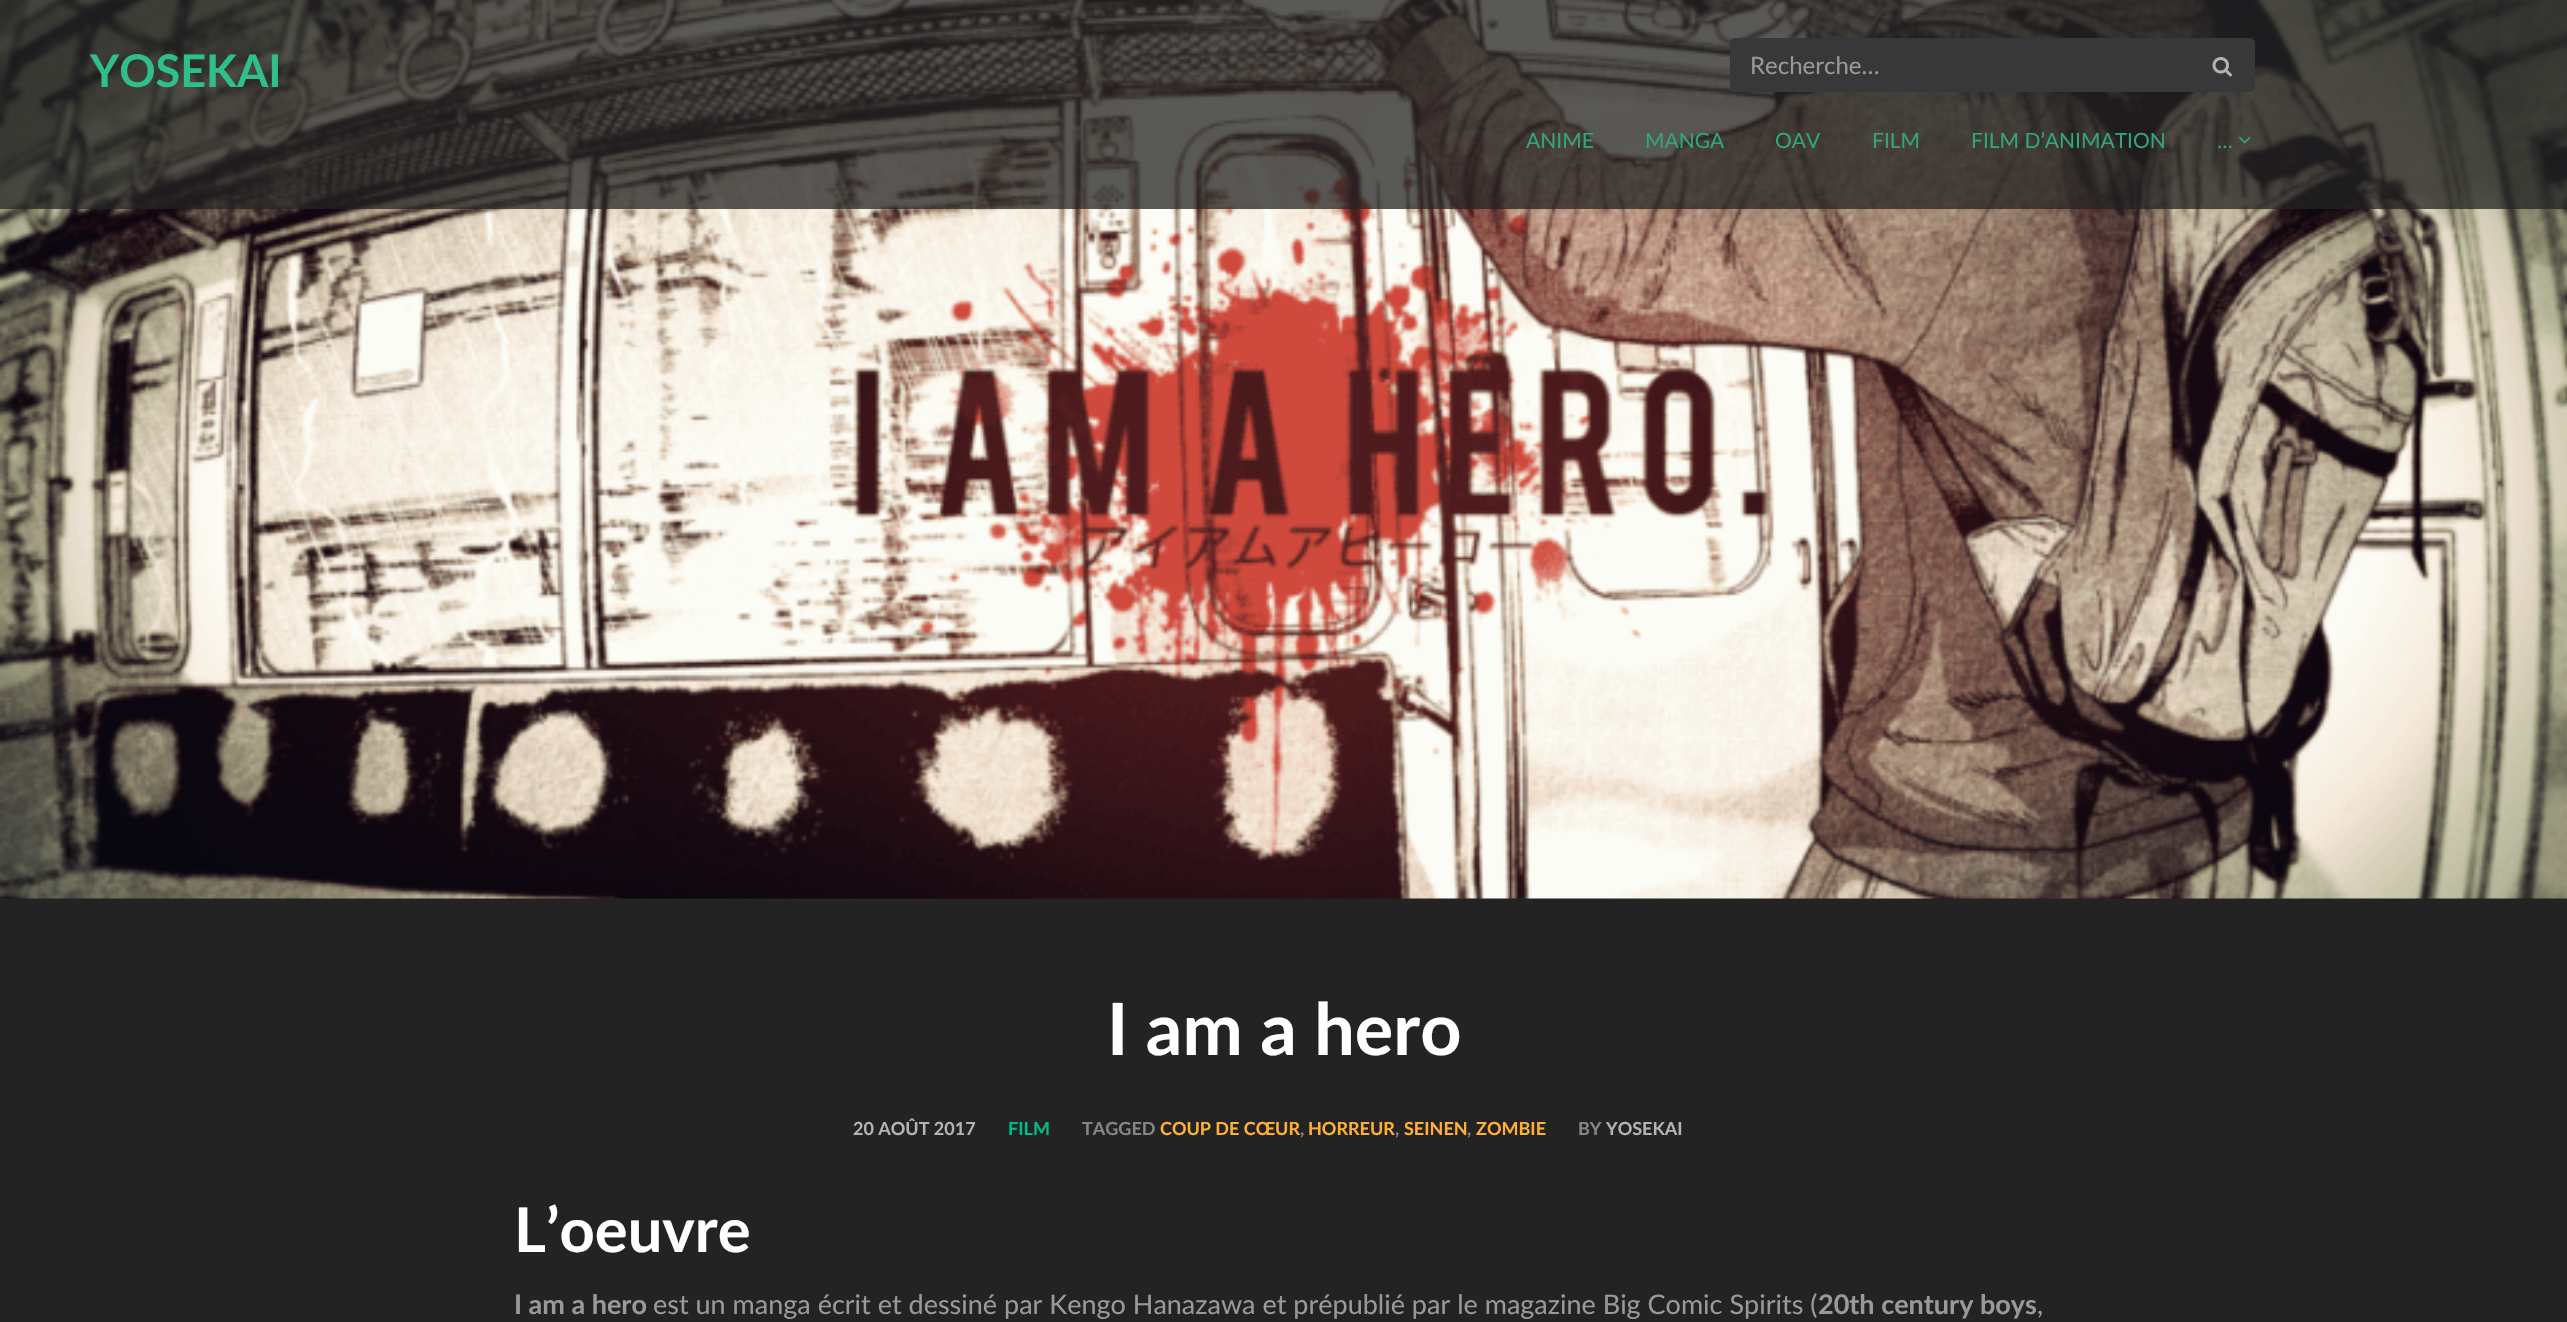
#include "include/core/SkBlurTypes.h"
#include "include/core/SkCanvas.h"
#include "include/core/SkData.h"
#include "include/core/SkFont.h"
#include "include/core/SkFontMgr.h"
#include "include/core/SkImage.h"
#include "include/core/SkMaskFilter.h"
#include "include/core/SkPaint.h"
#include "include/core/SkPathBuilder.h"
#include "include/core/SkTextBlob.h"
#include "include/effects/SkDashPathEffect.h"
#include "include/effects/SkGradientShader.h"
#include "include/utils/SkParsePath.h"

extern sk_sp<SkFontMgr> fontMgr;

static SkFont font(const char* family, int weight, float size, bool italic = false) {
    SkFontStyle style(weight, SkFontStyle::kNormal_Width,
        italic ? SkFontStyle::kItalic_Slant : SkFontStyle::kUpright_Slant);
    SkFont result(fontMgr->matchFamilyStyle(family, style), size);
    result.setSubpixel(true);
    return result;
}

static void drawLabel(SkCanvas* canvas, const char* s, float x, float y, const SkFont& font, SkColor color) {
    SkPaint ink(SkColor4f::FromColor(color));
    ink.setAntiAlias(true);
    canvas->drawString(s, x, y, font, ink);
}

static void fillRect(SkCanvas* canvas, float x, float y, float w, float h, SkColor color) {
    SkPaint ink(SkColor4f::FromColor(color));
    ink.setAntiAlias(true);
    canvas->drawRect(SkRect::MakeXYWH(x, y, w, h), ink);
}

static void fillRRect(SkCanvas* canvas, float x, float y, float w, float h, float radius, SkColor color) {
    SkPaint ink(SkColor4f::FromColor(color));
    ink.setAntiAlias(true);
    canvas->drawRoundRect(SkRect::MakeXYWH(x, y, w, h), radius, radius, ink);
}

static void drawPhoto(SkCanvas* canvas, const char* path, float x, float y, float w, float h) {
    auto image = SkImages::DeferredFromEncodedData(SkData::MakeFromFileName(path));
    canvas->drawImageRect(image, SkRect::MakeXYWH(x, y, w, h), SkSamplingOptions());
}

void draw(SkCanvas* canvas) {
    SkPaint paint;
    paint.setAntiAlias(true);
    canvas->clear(0xFF232323);
    drawPhoto(canvas, "assets/img3.png", 0, 0, 2567, 899);
    fillRect(canvas, 0, 0, 2567, 209, 0xBF232323);
    SkFont font1 = font("Lato", 700, 45);
    drawLabel(canvas, "YOSEKAI", 90, 87, font1, 0xFF2EBF8B);
    fillRRect(canvas, 1730, 38, 525, 54, 5, 0xFF383838);
    SkFont font2 = font("Lato", 400, 24);
    drawLabel(canvas, "Recherche…", 1750, 74, font2, 0xFF999999);
    drawPhoto(canvas, "assets/img1.png", 2212, 57, 20, 20);
    SkFont font3 = font("Lato", 400, 21);
    drawLabel(canvas, "ANIME", 1526, 148, font3, 0xFF33A57A);
    drawLabel(canvas, "MANGA", 1645, 148, font3, 0xFF33A57A);
    drawLabel(canvas, "OAV", 1775, 148, font3, 0xFF33A57A);
    drawLabel(canvas, "FILM", 1872, 148, font3, 0xFF33A57A);
    drawLabel(canvas, "FILM D’ANIMATION", 1971, 148, font3, 0xFF33A57A);
    drawPhoto(canvas, "assets/img2.png", 2239, 136, 12, 8);
    drawLabel(canvas, "…", 2217, 148, font3, 0xFF33A57A);
    SkFont font4 = font("Lato", 700, 72);
    drawLabel(canvas, "I am a hero", 1107, 1055, font4, 0xFFFFFFFF);
    SkFont font5 = font("Lato", 700, 18);
    drawLabel(canvas, "20 AOÛT 2017", 853, 1135, font5, 0xFFB3B3B3);
    drawLabel(canvas, "FILM", 1008, 1135, font5, 0xFF00BD85);
    drawLabel(canvas, "TAGGED", 1082, 1135, font5, 0xFF858585);
    drawLabel(canvas, "COUP DE CŒUR", 1160, 1135, font5, 0xFFFFAF36);
    drawLabel(canvas, ",", 1300, 1135, font5, 0xFF858585);
    drawLabel(canvas, "HORREUR", 1308, 1135, font5, 0xFFFFAF36);
    drawLabel(canvas, ",", 1395, 1135, font5, 0xFF858585);
    drawLabel(canvas, "SEINEN", 1404, 1135, font5, 0xFFFFAF36);
    drawLabel(canvas, ",", 1467, 1135, font5, 0xFF858585);
    drawLabel(canvas, "ZOMBIE", 1476, 1135, font5, 0xFFFFAF36);
    drawLabel(canvas, "BY", 1578, 1135, font5, 0xFF858585);
    drawLabel(canvas, "YOSEKAI", 1606, 1135, font5, 0xFFB3B3B3);
    SkFont font6 = font("Lato", 700, 61.5f);
    drawLabel(canvas, "L’oeuvre", 514, 1252, font6, 0xFFFFFFFF);
    SkFont font7 = font("Lato", 700, 27);
    drawLabel(canvas, "I am a hero", 514, 1314, font7, 0xFF999999);
    SkFont font8 = font("Lato", 400, 27);
    drawLabel(canvas, "est un manga écrit et dessiné par Kengo Hanazawa et prépublié par le magazine Big Comic Spirits (", 653, 1314, font8, 0xFF999999);
    drawLabel(canvas, "20th century boys", 1818, 1314, font7, 0xFF999999);
    drawLabel(canvas, ",", 2037, 1314, font8, 0xFF999999);
}
